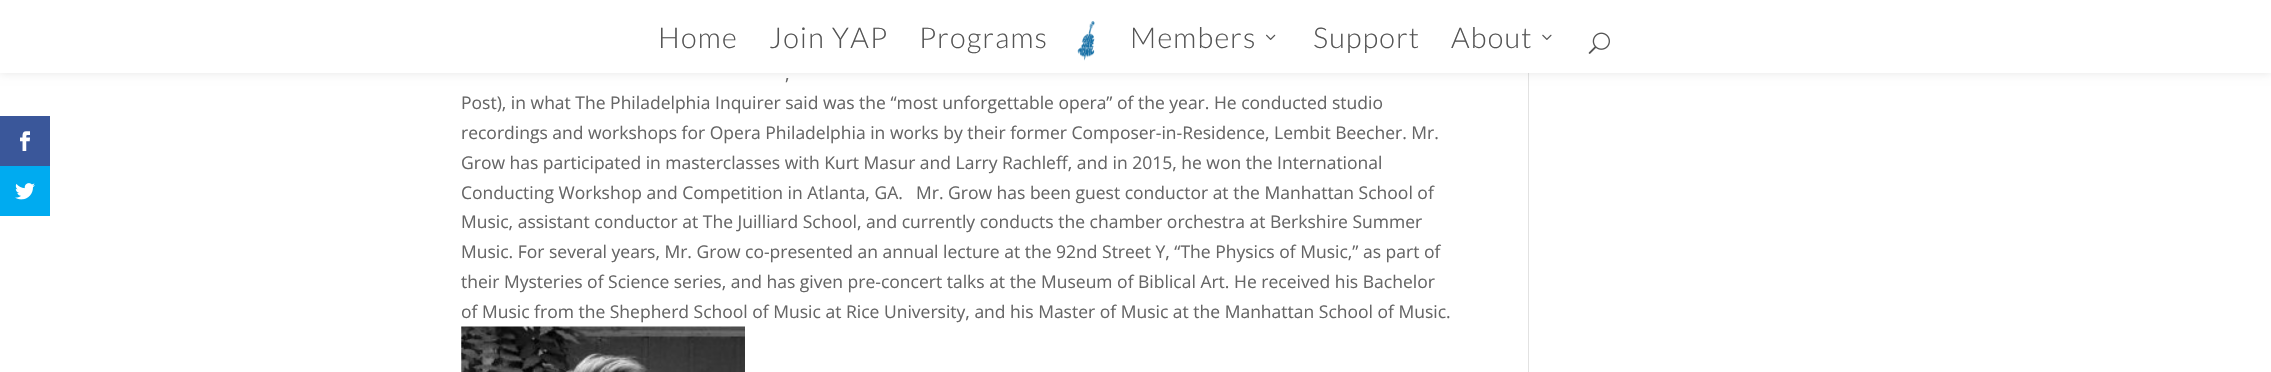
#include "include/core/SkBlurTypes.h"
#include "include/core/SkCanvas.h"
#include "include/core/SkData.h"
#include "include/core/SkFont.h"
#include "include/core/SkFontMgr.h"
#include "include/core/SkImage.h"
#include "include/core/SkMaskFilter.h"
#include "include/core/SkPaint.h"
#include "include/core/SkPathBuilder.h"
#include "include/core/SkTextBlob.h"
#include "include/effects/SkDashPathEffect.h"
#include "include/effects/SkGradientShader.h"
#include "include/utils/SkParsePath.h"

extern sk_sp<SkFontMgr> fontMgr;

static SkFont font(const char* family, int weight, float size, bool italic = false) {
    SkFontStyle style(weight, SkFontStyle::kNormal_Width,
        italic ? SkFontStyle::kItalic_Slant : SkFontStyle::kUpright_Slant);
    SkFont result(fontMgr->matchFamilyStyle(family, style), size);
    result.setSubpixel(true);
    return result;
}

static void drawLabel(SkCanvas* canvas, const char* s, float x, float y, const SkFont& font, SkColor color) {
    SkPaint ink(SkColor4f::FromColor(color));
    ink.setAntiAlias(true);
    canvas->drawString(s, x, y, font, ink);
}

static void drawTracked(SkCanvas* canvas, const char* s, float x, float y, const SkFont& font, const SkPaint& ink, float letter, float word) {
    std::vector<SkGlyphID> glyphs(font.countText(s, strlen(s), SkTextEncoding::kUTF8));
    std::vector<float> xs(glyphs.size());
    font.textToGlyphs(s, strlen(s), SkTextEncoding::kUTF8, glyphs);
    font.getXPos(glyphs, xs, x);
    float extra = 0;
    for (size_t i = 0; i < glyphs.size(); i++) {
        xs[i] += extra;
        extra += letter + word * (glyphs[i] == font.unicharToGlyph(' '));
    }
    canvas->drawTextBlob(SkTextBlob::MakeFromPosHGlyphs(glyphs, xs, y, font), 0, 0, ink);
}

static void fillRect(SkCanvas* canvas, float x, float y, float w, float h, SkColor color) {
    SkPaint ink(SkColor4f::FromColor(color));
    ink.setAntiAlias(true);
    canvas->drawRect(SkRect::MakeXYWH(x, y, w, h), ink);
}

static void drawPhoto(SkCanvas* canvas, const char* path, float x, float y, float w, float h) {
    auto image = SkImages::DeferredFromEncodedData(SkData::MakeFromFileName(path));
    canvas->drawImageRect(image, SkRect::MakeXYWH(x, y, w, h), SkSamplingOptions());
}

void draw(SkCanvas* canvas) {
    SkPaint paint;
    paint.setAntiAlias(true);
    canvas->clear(0xFFFFFFFF);
    fillRect(canvas, 0, 116, 50, 50, 0xFF3A579A);
    drawPhoto(canvas, "assets/img1.png", 20, 131, 10, 20);
    fillRect(canvas, 0, 166, 50, 50, 0xFF00ABF0);
    drawPhoto(canvas, "assets/img2.png", 15, 183, 20, 17);
    fillRect(canvas, 1528, 73, 1, 299, 0xFFE2E2E2);
    paint.setColor(0x1A000000);
    paint.setMaskFilter(SkMaskFilter::MakeBlur(kNormal_SkBlurStyle, 4.5f));
    canvas->drawRect(SkRect::MakeXYWH(0, 0, 2271, 73), paint);
    paint.setMaskFilter(nullptr);
    fillRect(canvas, 0, 0, 2271, 73, 0xFFFFFFFF);
    SkFont font1 = font("Lato", 300, 28.75f);
    paint.setColor(0xFF545454);
    drawTracked(canvas, "Home", 658, 48, font1, paint, 1.25f, 0);
    drawTracked(canvas, "Join YAP", 769, 48, font1, paint, 1.25f, 0);
    drawTracked(canvas, "Programs", 919, 48, font1, paint, 1.25f, 0);
    drawPhoto(canvas, "assets/img3.png", 1077, 21, 18, 40);
    drawTracked(canvas, "Members", 1130, 48, font1, paint, 1.25f, 0);
    drawPhoto(canvas, "assets/img4.png", 1266, 34, 10, 6);
    drawTracked(canvas, "Support", 1313, 48, font1, paint, 1.25f, 0);
    drawTracked(canvas, "About", 1451, 48, font1, paint, 1.25f, 0);
    drawPhoto(canvas, "assets/img5.png", 1542, 34, 10, 6);
    drawPhoto(canvas, "assets/img6.png", 1588, 32, 22, 22);
    SkFont font2 = font("Open Sans", 400, 17.5f);
    drawLabel(canvas, ",", 785, 80, font2, 0xFF666666);
    drawLabel(canvas, "Post), in what The Philadelphia Inquirer said was the “most unforgettable opera” of the year. He conducted studio", 461, 109, font2, 0xFF666666);
    drawLabel(canvas, "recordings and workshops for Opera Philadelphia in works by their former Composer-in-Residence, Lembit Beecher. Mr.", 461, 139, font2, 0xFF666666);
    drawLabel(canvas, "Grow has participated in masterclasses with Kurt Masur and Larry Rachleff, and in 2015, he won the International", 461, 169, font2, 0xFF666666);
    drawLabel(canvas, "Conducting Workshop and Competition in Atlanta, GA.", 461, 199, font2, 0xFF666666);
    drawLabel(canvas, "Mr. Grow has been guest conductor at the Manhattan School of", 916, 199, font2, 0xFF666666);
    drawLabel(canvas, "Music, assistant conductor at The Juilliard School, and currently conducts the chamber orchestra at Berkshire Summer", 461, 228, font2, 0xFF666666);
    drawLabel(canvas, "Music. For several years, Mr. Grow co-presented an annual lecture at the 92nd Street Y, “The Physics of Music,” as part of", 461, 258, font2, 0xFF666666);
    drawLabel(canvas, "their Mysteries of Science series, and has given pre-concert talks at the Museum of Biblical Art. He received his Bachelor", 461, 288, font2, 0xFF666666);
    drawLabel(canvas, "of Music from the Shepherd School of Music at Rice University, and his Master of Music at the Manhattan School of Music.", 461, 318, font2, 0xFF666666);
    drawPhoto(canvas, "assets/img7.png", 461, 326, 284, 46);
}
